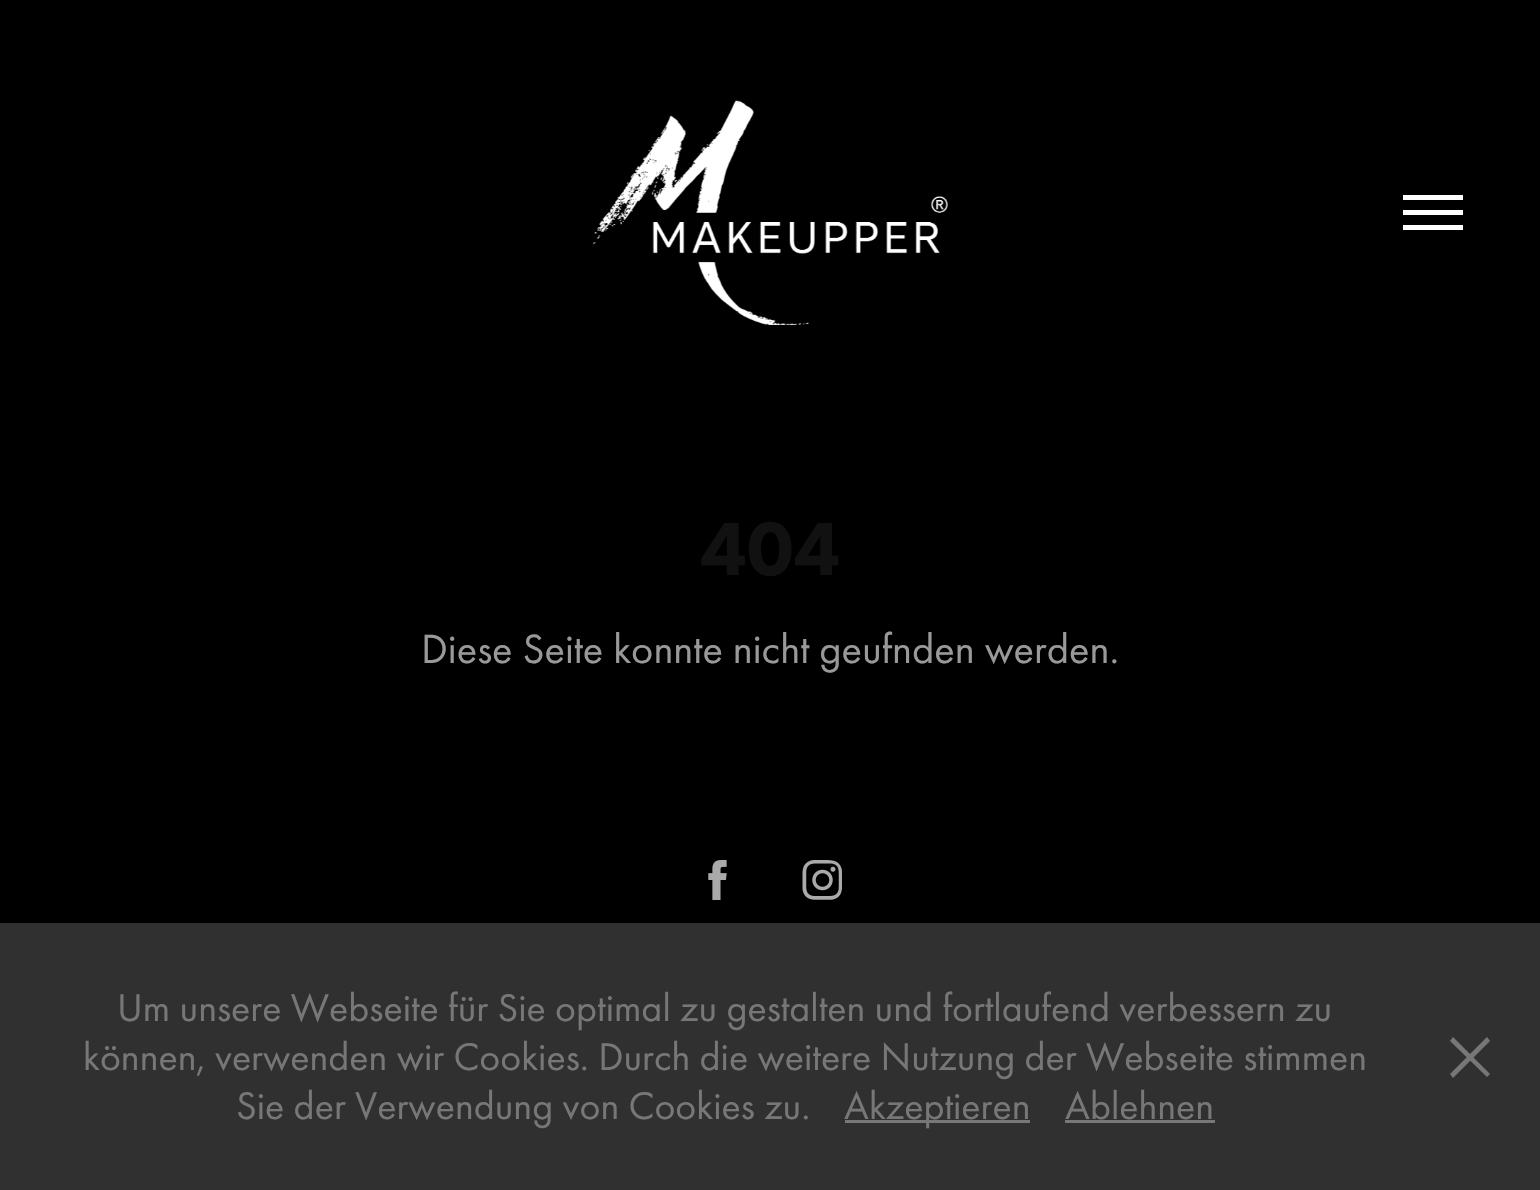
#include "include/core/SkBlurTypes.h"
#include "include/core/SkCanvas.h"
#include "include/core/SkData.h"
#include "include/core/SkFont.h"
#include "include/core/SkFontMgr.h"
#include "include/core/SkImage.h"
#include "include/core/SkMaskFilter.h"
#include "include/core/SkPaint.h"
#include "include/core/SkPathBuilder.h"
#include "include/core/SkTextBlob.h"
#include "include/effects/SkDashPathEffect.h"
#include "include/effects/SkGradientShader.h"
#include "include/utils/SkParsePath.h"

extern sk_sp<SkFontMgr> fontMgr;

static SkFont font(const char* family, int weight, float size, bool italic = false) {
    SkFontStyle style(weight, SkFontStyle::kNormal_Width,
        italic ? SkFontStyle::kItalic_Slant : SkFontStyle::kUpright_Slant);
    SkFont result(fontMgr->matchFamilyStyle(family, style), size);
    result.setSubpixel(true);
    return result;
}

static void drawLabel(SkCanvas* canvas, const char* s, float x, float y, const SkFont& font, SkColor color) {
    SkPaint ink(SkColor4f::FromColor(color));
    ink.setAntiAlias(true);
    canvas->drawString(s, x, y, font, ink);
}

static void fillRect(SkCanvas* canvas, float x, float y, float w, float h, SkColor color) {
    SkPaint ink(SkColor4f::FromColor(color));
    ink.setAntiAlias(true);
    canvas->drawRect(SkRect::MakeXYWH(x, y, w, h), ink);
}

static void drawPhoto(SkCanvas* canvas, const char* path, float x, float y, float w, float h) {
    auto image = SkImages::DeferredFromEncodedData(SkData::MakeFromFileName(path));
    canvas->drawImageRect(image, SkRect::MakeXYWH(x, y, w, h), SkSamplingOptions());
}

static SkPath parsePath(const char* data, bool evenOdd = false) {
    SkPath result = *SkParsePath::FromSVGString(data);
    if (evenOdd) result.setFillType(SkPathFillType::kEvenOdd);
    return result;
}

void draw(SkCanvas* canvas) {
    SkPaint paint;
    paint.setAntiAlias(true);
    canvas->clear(0xFF000000);
    drawPhoto(canvas, "assets/img1.png", 593, 100, 355, 225);
    fillRect(canvas, 1403, 195, 60, 5, 0xFFFFFFFF);
    fillRect(canvas, 1403, 210, 60, 5, 0xFFFFFFFF);
    fillRect(canvas, 1403, 225, 60, 5, 0xFFFFFFFF);
    SkFont font1 = font("Futura PT", 900, 78);
    drawLabel(canvas, "404", 700, 575, font1, 0xFF111111);
    SkFont font2 = font("Futura PT", 400, 42.5f);
    drawLabel(canvas, "Diese Seite konnte nicht geufnden werden.", 421, 663, font2, 0xFF999999);
    drawPhoto(canvas, "assets/img2.png", 708, 860, 19, 40);
    drawPhoto(canvas, "assets/img3.png", 802, 860, 40, 40);
    fillRect(canvas, 0, 923, 1540, 267, 0xFF303030);
    SkFont font3 = font("Futura PT", 400, 40);
    drawLabel(canvas, "Um unsere Webseite für Sie optimal zu gestalten und fortlaufend verbessern zu", 117, 1021, font3, 0xFF777777);
    drawLabel(canvas, "können, verwenden wir Cookies. Durch die weitere Nutzung der Webseite stimmen", 83, 1070, font3, 0xFF777777);
    drawLabel(canvas, "Sie der Verwendung von Cookies zu.", 236, 1119, font3, 0xFF777777);
    fillRect(canvas, 845, 1120, 185, 3, 0xFF777777);
    drawLabel(canvas, "Akzeptieren", 844, 1119, font3, 0xFF777777);
    drawLabel(canvas, "Ablehnen", 1065, 1119, font3, 0xFF777777);
    fillRect(canvas, 1065, 1120, 150, 3, 0xFF777777);
    paint.setColor(0xFF777777);
    canvas->drawPath(parsePath("M1450 1041L1453 1037L1490 1074L1487 1077Z"), paint);
    canvas->drawPath(parsePath("M1453 1078L1450 1074L1487 1037L1490 1041Z"), paint);
}
